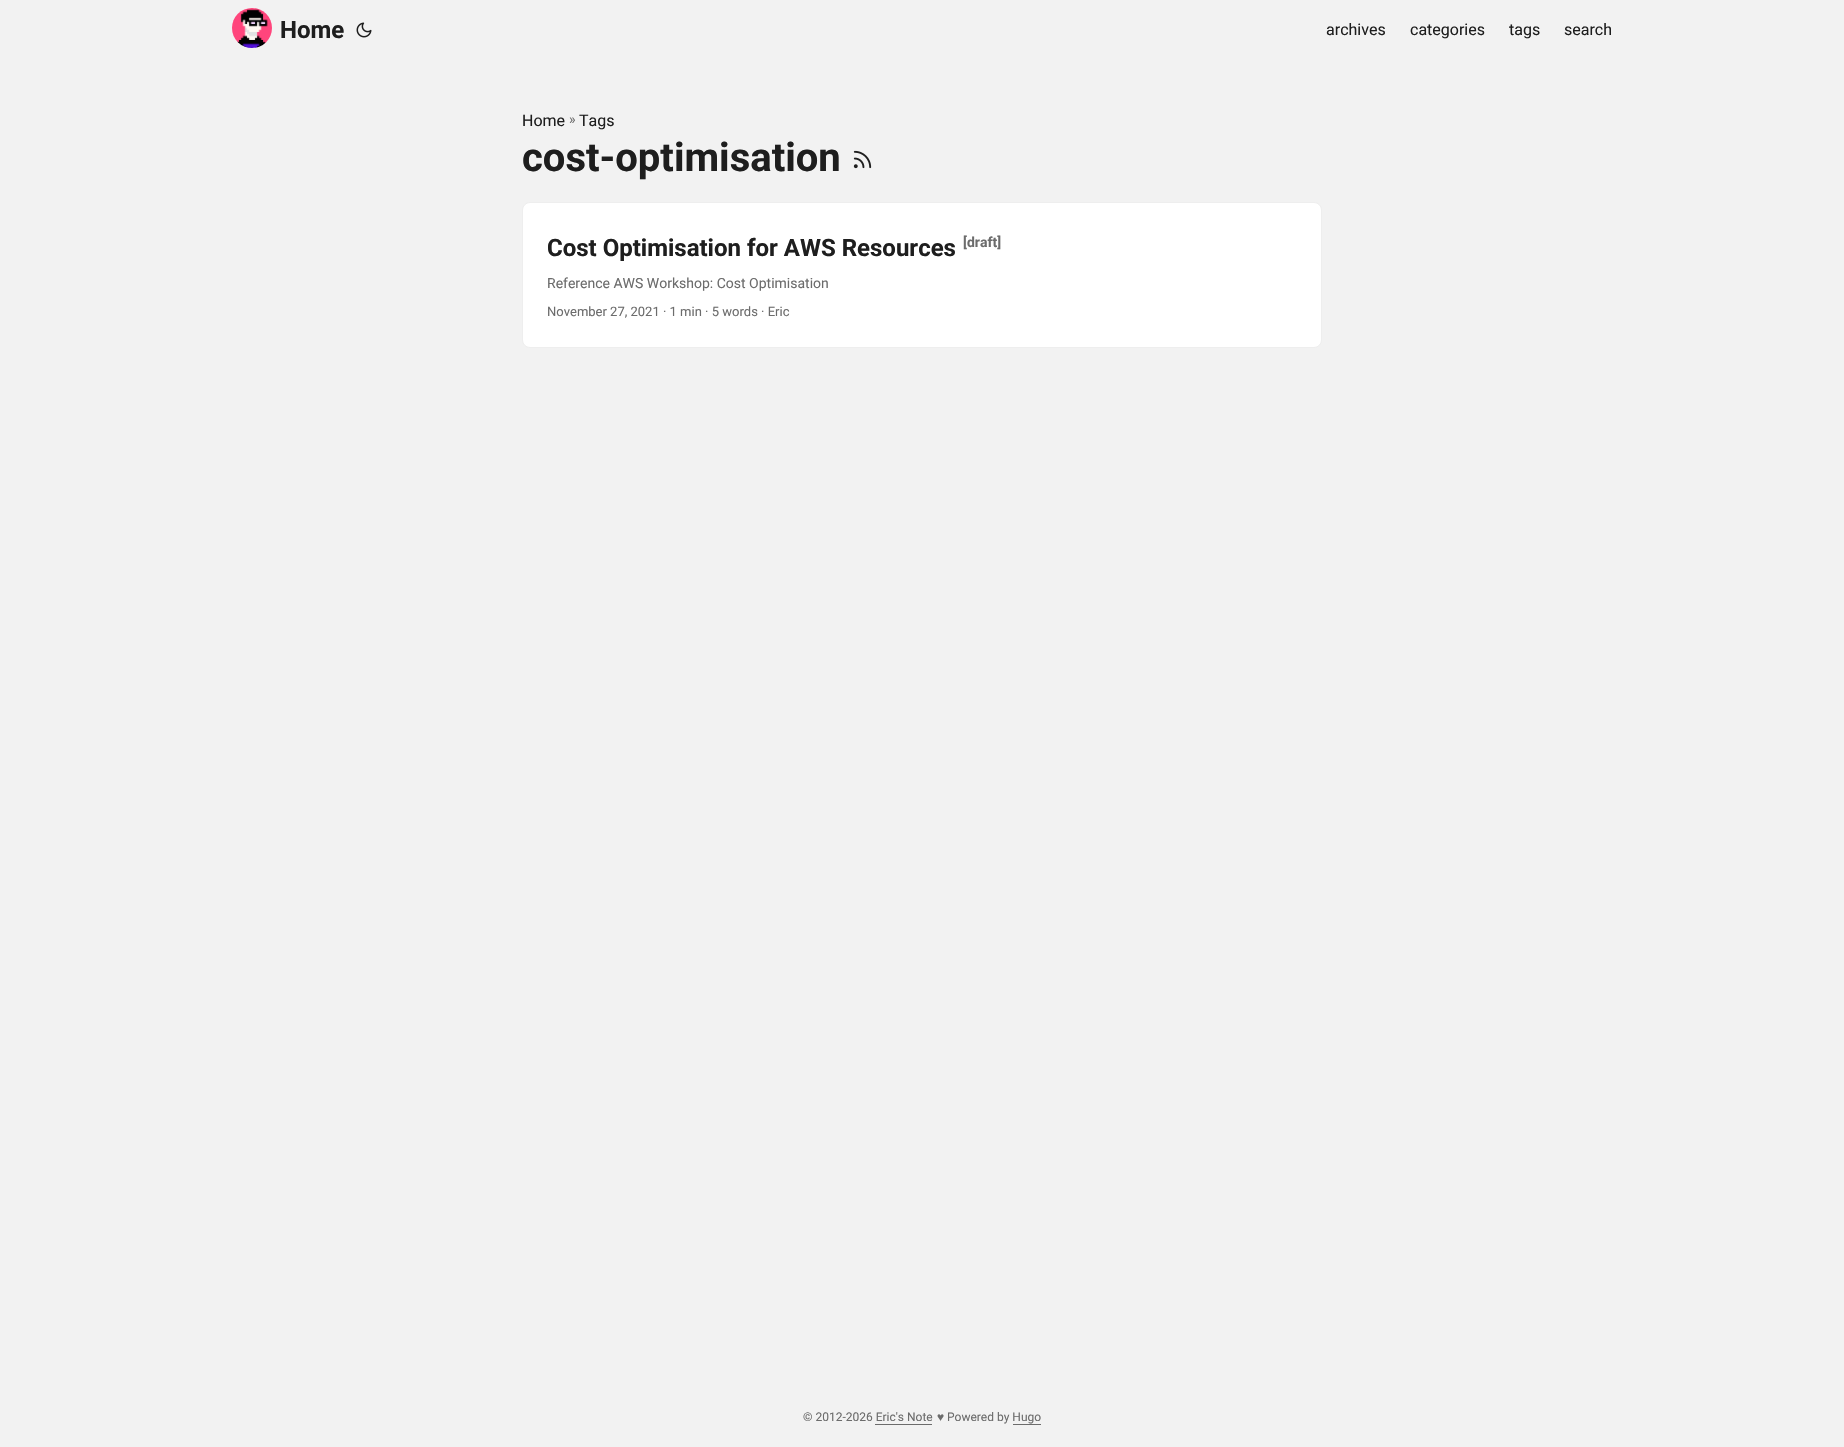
#include "include/core/SkBlurTypes.h"
#include "include/core/SkCanvas.h"
#include "include/core/SkData.h"
#include "include/core/SkFont.h"
#include "include/core/SkFontMgr.h"
#include "include/core/SkImage.h"
#include "include/core/SkMaskFilter.h"
#include "include/core/SkPaint.h"
#include "include/core/SkPathBuilder.h"
#include "include/core/SkTextBlob.h"
#include "include/effects/SkDashPathEffect.h"
#include "include/effects/SkGradientShader.h"
#include "include/utils/SkParsePath.h"

extern sk_sp<SkFontMgr> fontMgr;

static SkFont font(const char* family, int weight, float size, bool italic = false) {
    SkFontStyle style(weight, SkFontStyle::kNormal_Width,
        italic ? SkFontStyle::kItalic_Slant : SkFontStyle::kUpright_Slant);
    SkFont result(fontMgr->matchFamilyStyle(family, style), size);
    result.setSubpixel(true);
    return result;
}

static void drawLabel(SkCanvas* canvas, const char* s, float x, float y, const SkFont& font, SkColor color) {
    SkPaint ink(SkColor4f::FromColor(color));
    ink.setAntiAlias(true);
    canvas->drawString(s, x, y, font, ink);
}

static void fillRect(SkCanvas* canvas, float x, float y, float w, float h, SkColor color) {
    SkPaint ink(SkColor4f::FromColor(color));
    ink.setAntiAlias(true);
    canvas->drawRect(SkRect::MakeXYWH(x, y, w, h), ink);
}

static void drawPhoto(SkCanvas* canvas, const char* path, float x, float y, float w, float h) {
    auto image = SkImages::DeferredFromEncodedData(SkData::MakeFromFileName(path));
    canvas->drawImageRect(image, SkRect::MakeXYWH(x, y, w, h), SkSamplingOptions());
}

void draw(SkCanvas* canvas) {
    SkPaint paint;
    paint.setAntiAlias(true);
    canvas->clear(0xFFF2F2F2);
    drawPhoto(canvas, "assets/img1.png", 232, 8, 40, 40);
    SkFont font1 = font("Roboto", 700, 24);
    drawLabel(canvas, "Home", 280, 38, font1, 0xFF1E1E1E);
    drawPhoto(canvas, "assets/img2.png", 356, 22, 16, 16);
    SkFont font2 = font("Roboto", 400, 16);
    drawLabel(canvas, "archives", 1326, 35, font2, 0xFF1E1E1E);
    drawLabel(canvas, "categories", 1410, 35, font2, 0xFF1E1E1E);
    drawLabel(canvas, "tags", 1509, 35, font2, 0xFF1E1E1E);
    drawLabel(canvas, "search", 1564, 35, font2, 0xFF1E1E1E);
    drawLabel(canvas, "Home", 522, 126, font2, 0xFF1E1E1E);
    SkFont font3 = font("Roboto", 400, 14);
    drawLabel(canvas, "»", 569, 124, font3, 0xFF6C6C6C);
    drawLabel(canvas, "Tags", 579, 126, font2, 0xFF1E1E1E);
    SkFont font4 = font("Roboto", 700, 40);
    drawLabel(canvas, "cost-optimisation", 522, 171, font4, 0xFF1E1E1E);
    drawPhoto(canvas, "assets/img3.png", 853, 150, 19, 19);
    paint.setColor(0xFFFFFFFF);
    canvas->drawRoundRect(SkRect::MakeXYWH(522.5f, 202.5f, 799, 145), 7.5f, 7.5f, paint);
    paint.setStroke(true);
    paint.setStrokeWidth(1);
    paint.setColor(0xFFEEEEEE);
    canvas->drawRoundRect(SkRect::MakeXYWH(522.5f, 202.5f, 799, 145), 7.5f, 7.5f, paint);
    drawLabel(canvas, "Cost Optimisation for AWS Resources", 547, 256, font1, 0xFF1E1E1E);
    SkFont font5 = font("Roboto", 700, 14);
    drawLabel(canvas, "[draft]", 963, 247, font5, 0xFF6C6C6C);
    drawLabel(canvas, "Reference AWS Workshop: Cost Optimisation", 547, 288, font3, 0xFF6C6C6C);
    SkFont font6 = font("Roboto", 400, 13);
    drawLabel(canvas, "November 27, 2021 · 1 min · 5 words · Eric", 547, 316, font6, 0xFF6C6C6C);
    SkFont font7 = font("Roboto", 400, 12);
    drawLabel(canvas, "© 2012-2026 Eric's Note", 803, 1421, font7, 0xFF6C6C6C);
    fillRect(canvas, 875, 1424, 57, 1, 0xFF6C6C6C);
    SkFont font8 = font("Liberation Sans", 400, 12);
    drawLabel(canvas, "♥", 937, 1421, font8, 0xFF6C6C6C);
    drawLabel(canvas, "Powered by Hugo", 947, 1421, font7, 0xFF6C6C6C);
    fillRect(canvas, 1013, 1424, 28, 1, 0xFF6C6C6C);
}
